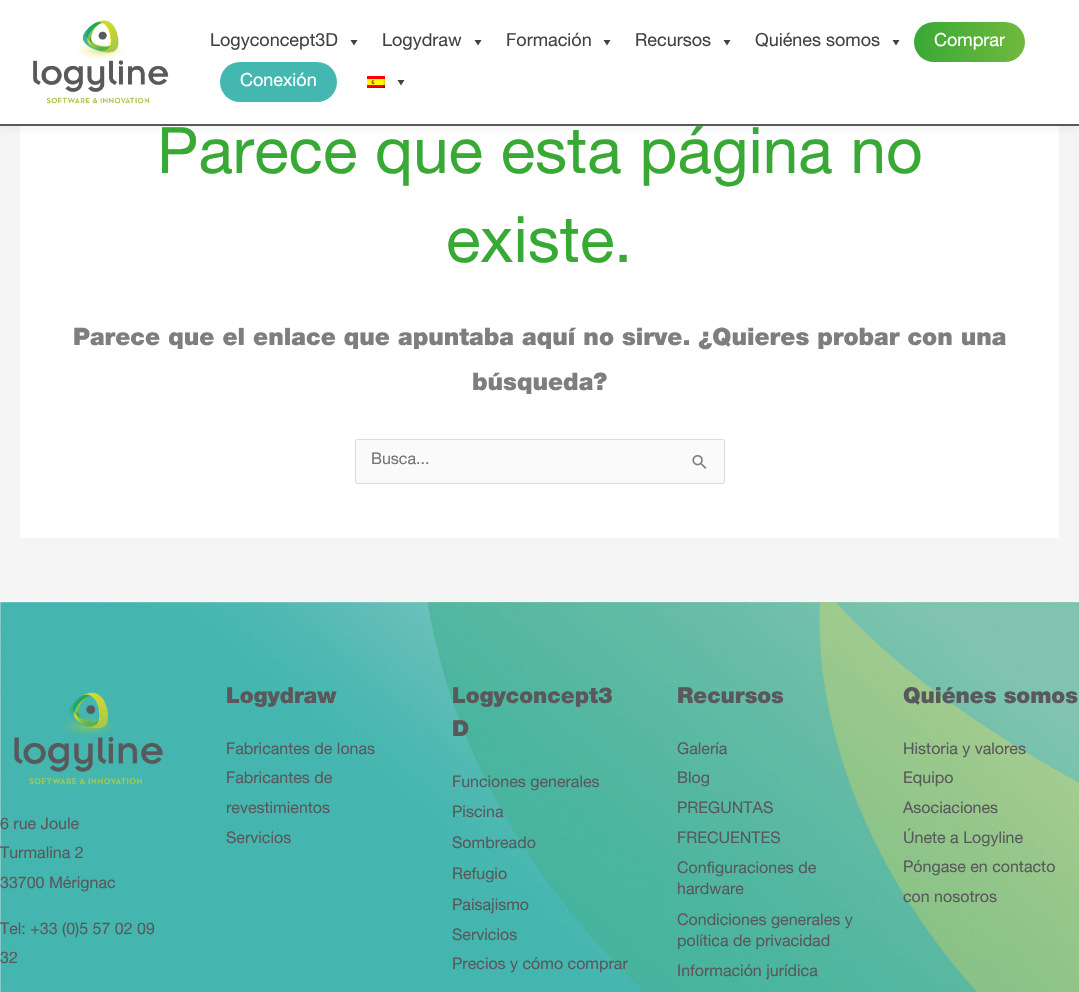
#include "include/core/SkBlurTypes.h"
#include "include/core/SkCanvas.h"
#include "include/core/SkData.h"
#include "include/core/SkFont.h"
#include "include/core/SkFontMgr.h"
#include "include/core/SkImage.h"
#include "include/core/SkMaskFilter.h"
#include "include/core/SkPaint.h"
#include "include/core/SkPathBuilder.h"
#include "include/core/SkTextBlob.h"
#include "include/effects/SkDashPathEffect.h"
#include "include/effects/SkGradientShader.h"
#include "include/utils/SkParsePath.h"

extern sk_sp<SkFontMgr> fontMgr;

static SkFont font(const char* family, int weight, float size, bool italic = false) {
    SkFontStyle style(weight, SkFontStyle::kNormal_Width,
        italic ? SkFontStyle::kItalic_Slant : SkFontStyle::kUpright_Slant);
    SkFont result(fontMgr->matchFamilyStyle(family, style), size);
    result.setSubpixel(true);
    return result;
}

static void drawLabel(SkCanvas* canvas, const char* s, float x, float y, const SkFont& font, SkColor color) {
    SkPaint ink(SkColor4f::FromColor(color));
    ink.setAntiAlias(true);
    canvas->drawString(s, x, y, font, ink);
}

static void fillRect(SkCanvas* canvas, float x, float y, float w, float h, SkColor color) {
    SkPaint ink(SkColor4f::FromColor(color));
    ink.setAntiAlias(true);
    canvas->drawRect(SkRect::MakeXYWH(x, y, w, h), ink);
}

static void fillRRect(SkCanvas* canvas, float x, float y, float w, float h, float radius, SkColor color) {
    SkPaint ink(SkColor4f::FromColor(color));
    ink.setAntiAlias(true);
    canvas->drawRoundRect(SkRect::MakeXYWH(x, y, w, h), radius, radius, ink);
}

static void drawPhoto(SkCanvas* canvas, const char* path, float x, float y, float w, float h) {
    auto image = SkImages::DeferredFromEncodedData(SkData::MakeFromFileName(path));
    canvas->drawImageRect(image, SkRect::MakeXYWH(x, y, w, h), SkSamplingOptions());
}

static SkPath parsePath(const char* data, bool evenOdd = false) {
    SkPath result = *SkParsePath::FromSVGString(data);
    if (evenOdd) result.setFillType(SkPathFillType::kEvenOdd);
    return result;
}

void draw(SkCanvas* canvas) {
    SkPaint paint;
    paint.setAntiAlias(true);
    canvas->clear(0xFFF5F5F5);
    fillRect(canvas, 20, 126, 1039, 412, 0xFFFFFFFF);
    paint.setColor(0x12243242);
    paint.setMaskFilter(SkMaskFilter::MakeBlur(kNormal_SkBlurStyle, 5));
    canvas->drawRect(SkRect::MakeXYWH(0, 2, 1079, 126), paint);
    paint.setMaskFilter(nullptr);
    fillRect(canvas, 0, 0, 1079, 124, 0xFFFFFFFF);
    fillRect(canvas, 0, 124, 1079, 2, 0xFF59595B);
    drawPhoto(canvas, "assets/img1.png", 33, 20, 136, 84);
    SkFont font1 = font("Helvetica Neue", 400, 18);
    drawLabel(canvas, "Logyconcept3D", 210, 46, font1, 0xFF424242);
    paint.setColor(0xFF424242);
    canvas->drawPath(parsePath("M357.5 40L354 45.5L350.5 40Z"), paint);
    drawLabel(canvas, "Logydraw", 382, 46, font1, 0xFF424242);
    canvas->drawPath(parsePath("M481.5 40L478 45.5L474.5 40Z"), paint);
    drawLabel(canvas, "Formación", 506, 46, font1, 0xFF424242);
    canvas->drawPath(parsePath("M610.5 40L607 45.5L603.5 40Z"), paint);
    drawLabel(canvas, "Recursos", 635, 46, font1, 0xFF424242);
    canvas->drawPath(parsePath("M730.5 40L727 45.5L723.5 40Z"), paint);
    drawLabel(canvas, "Quiénes somos", 755, 46, font1, 0xFF424242);
    canvas->drawPath(parsePath("M899.5 40L896 45.5L892.5 40Z"), paint);
    {
        const SkColor colors[] = {0xFF39A935, 0xFFA9C947};
        const float stops[] = {0, 1};
        const SkPoint ends[] = {{914, 42}, {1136, 42}};
        paint.setShader(SkGradientShader::MakeLinear(ends, colors, stops, 2, SkTileMode::kClamp));
        paint.setAlpha(255);
    }
    canvas->drawRoundRect(SkRect::MakeXYWH(914, 22, 111, 40), 20, 20, paint);
    drawLabel(canvas, "Comprar", 934, 46, font1, 0xFFFFFFFF);
    fillRRect(canvas, 220, 62, 117, 40, 20, 0xFF44B7B0);
    drawLabel(canvas, "Conexión", 240, 86, font1, 0xFFFFFFFF);
    drawPhoto(canvas, "assets/img2.png", 367, 76, 18, 12);
    paint.setShader(nullptr);
    paint.setColor(0xFF424242);
    canvas->drawPath(parsePath("M404.5 80L401 85.5L397.5 80Z"), paint);
    SkFont font2 = font("Helvetica Neue", 400, 64);
    drawLabel(canvas, "Parece que esta página no", 157, 173, font2, 0xFF39A935);
    drawLabel(canvas, "existe.", 446, 262, font2, 0xFF39A935);
    SkFont font3 = font("Helvetica Neue", 900, 24);
    drawLabel(canvas, "Parece que el enlace que apuntaba aquí no sirve. ¿Quieres probar con una", 73, 345, font3, 0xFF7E7E7E);
    drawLabel(canvas, "búsqueda?", 472, 390, font3, 0xFF7E7E7E);
    paint.setColor(0xFFFAFAFA);
    canvas->drawRoundRect(SkRect::MakeXYWH(355.5f, 439.5f, 369, 44), 1.5f, 1.5f, paint);
    paint.setStroke(true);
    paint.setStrokeWidth(1);
    paint.setColor(0xFFDDDDDD);
    canvas->drawRoundRect(SkRect::MakeXYWH(355.5f, 439.5f, 369, 44), 1.5f, 1.5f, paint);
    SkFont font4 = font("Helvetica Neue", 400, 16);
    drawLabel(canvas, "Busca...", 371, 464, font4, 0xFF757575);
    drawPhoto(canvas, "assets/img3.png", 692, 455, 15, 14);
    drawPhoto(canvas, "assets/img4.png", 0, 602, 1079, 390);
    drawPhoto(canvas, "assets/img5.png", 14, 692, 149, 93);
    drawLabel(canvas, "6 rue Joule", 0, 829, font4, 0xFF59595B);
    drawLabel(canvas, "Turmalina 2", 0, 858, font4, 0xFF59595B);
    drawLabel(canvas, "33700 Mérignac", 0, 888, font4, 0xFF59595B);
    drawLabel(canvas, "Tel: +33 (0)5 57 02 09", 0, 934, font4, 0xFF59595B);
    drawLabel(canvas, "32", 0, 963, font4, 0xFF59595B);
    SkFont font5 = font("Helvetica Neue", 900, 22);
    drawLabel(canvas, "Logydraw", 226, 703, font5, 0xFF59595B);
    drawLabel(canvas, "Fabricantes de lonas", 226, 754, font4, 0xFF59595B);
    drawLabel(canvas, "Fabricantes de", 226, 783, font4, 0xFF59595B);
    drawLabel(canvas, "revestimientos", 226, 813, font4, 0xFF59595B);
    drawLabel(canvas, "Servicios", 226, 843, font4, 0xFF59595B);
    drawLabel(canvas, "Logyconcept3", 452, 703, font5, 0xFF59595B);
    drawLabel(canvas, "D", 452, 736, font5, 0xFF59595B);
    drawLabel(canvas, "Funciones generales", 452, 787, font4, 0xFF59595B);
    drawLabel(canvas, "Piscina", 452, 817, font4, 0xFF59595B);
    drawLabel(canvas, "Sombreado", 452, 848, font4, 0xFF59595B);
    drawLabel(canvas, "Refugio", 452, 879, font4, 0xFF59595B);
    drawLabel(canvas, "Paisajismo", 452, 910, font4, 0xFF59595B);
    drawLabel(canvas, "Servicios", 452, 940, font4, 0xFF59595B);
    drawLabel(canvas, "Precios y cómo comprar", 452, 969, font4, 0xFF59595B);
    drawLabel(canvas, "Recursos", 677, 703, font5, 0xFF59595B);
    drawLabel(canvas, "Galería", 677, 754, font4, 0xFF59595B);
    drawLabel(canvas, "Blog", 677, 783, font4, 0xFF59595B);
    drawLabel(canvas, "PREGUNTAS", 677, 813, font4, 0xFF59595B);
    drawLabel(canvas, "FRECUENTES", 677, 843, font4, 0xFF59595B);
    drawLabel(canvas, "Configuraciones de", 677, 873, font4, 0xFF59595B);
    drawLabel(canvas, "hardware", 677, 894, font4, 0xFF59595B);
    drawLabel(canvas, "Condiciones generales y", 677, 925, font4, 0xFF59595B);
    drawLabel(canvas, "política de privacidad", 677, 946, font4, 0xFF59595B);
    drawLabel(canvas, "Información jurídica", 677, 976, font4, 0xFF59595B);
    drawLabel(canvas, "Quiénes somos", 903, 703, font5, 0xFF59595B);
    drawLabel(canvas, "Historia y valores", 903, 754, font4, 0xFF59595B);
    drawLabel(canvas, "Equipo", 903, 783, font4, 0xFF59595B);
    drawLabel(canvas, "Asociaciones", 903, 813, font4, 0xFF59595B);
    drawLabel(canvas, "Únete a Logyline", 903, 843, font4, 0xFF59595B);
    drawLabel(canvas, "Póngase en contacto", 903, 872, font4, 0xFF59595B);
    drawLabel(canvas, "con nosotros", 903, 902, font4, 0xFF59595B);
}
